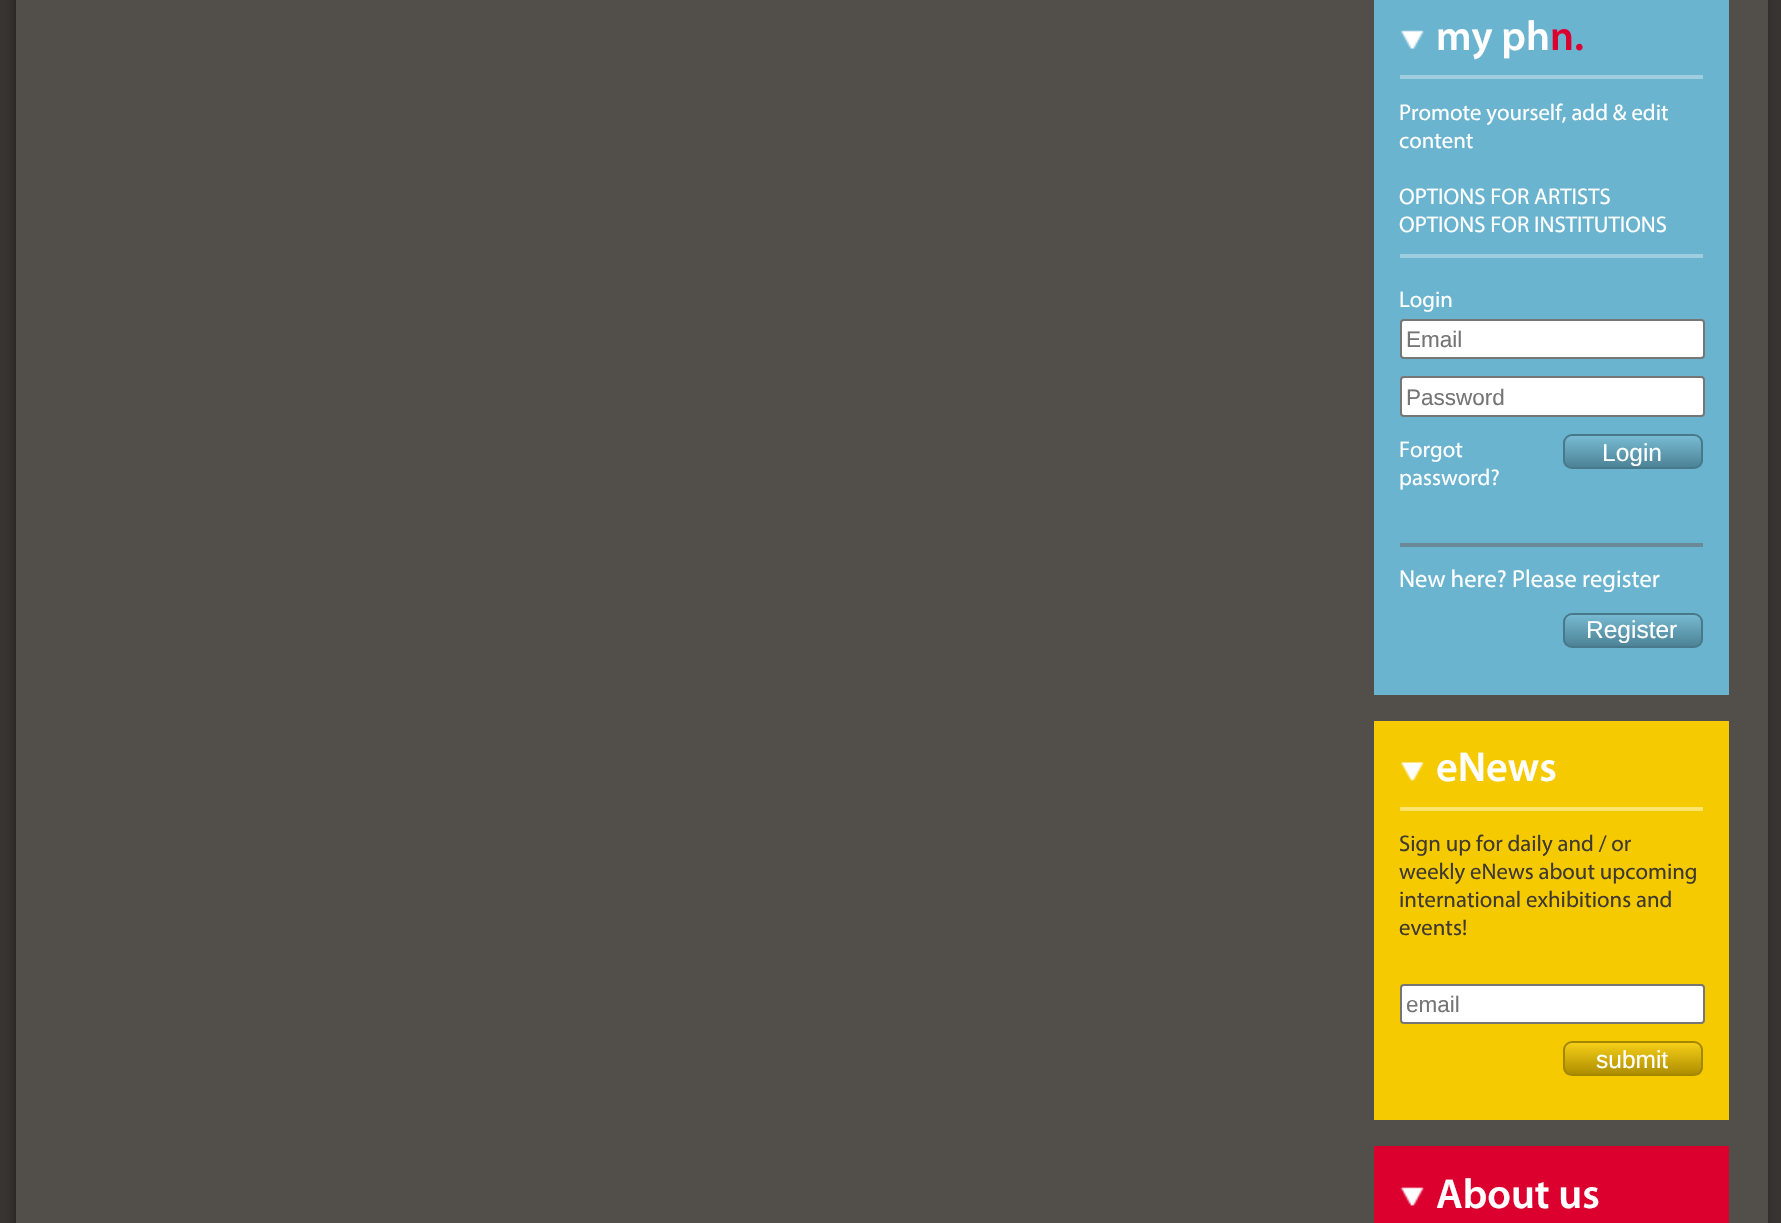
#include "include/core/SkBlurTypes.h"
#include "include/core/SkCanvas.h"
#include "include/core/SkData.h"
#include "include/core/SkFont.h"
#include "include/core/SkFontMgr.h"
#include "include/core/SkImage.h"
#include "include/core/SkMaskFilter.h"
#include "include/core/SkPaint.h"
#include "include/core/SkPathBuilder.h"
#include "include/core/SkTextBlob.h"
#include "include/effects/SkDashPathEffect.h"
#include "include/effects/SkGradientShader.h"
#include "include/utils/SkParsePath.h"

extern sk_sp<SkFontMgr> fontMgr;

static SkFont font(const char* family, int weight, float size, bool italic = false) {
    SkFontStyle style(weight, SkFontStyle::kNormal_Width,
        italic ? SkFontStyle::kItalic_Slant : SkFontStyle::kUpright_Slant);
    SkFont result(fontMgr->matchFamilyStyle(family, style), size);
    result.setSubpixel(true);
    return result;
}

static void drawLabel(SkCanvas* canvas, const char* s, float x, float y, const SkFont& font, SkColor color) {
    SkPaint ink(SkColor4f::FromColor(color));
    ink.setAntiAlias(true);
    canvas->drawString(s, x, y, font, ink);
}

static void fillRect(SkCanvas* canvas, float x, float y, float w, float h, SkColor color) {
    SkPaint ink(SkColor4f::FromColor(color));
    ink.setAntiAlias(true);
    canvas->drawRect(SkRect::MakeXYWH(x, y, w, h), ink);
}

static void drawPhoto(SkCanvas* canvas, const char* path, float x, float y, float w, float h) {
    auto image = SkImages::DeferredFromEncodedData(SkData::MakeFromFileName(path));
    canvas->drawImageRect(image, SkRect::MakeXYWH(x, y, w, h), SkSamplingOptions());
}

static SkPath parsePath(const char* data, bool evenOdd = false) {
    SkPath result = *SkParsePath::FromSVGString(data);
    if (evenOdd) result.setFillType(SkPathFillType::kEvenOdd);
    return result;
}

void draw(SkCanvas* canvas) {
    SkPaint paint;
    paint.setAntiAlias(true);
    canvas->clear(0xFF373431);
    paint.setColor(0x4F000000);
    paint.setMaskFilter(SkMaskFilter::MakeBlur(kNormal_SkBlurStyle, 4.5f));
    canvas->drawRect(SkRect::MakeXYWH(14, -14, 1752, 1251), paint);
    paint.setMaskFilter(nullptr);
    fillRect(canvas, 16, 0, 1752, 1223, 0xFF524E49);
    fillRect(canvas, 1374, 0, 355, 695, 0xFF6AB4CF);
    fillRect(canvas, 1400, 75, 303, 4, 0xFF9ECEDF);
    drawPhoto(canvas, "assets/img1.png", 1400, 30, 24, 19);
    SkFont font1 = font("Myriad", 600, 42);
    drawLabel(canvas, "my ph", 1436, 50, font1, 0xFFFFFFFF);
    drawLabel(canvas, "n.", 1550, 50, font1, 0xFFDB002E);
    fillRect(canvas, 1400, 254, 303, 4, 0xFF9ECEDF);
    SkFont font2 = font("Myriad", 400, 22.75f);
    drawLabel(canvas, "Promote yourself, add & edit", 1399, 120, font2, 0xFFFFFFFF);
    drawLabel(canvas, "content", 1399, 148, font2, 0xFFFFFFFF);
    drawLabel(canvas, "OPTIONS FOR ARTISTS", 1399, 204, font2, 0xFFFFFFFF);
    drawLabel(canvas, "OPTIONS FOR INSTITUTIONS", 1399, 232, font2, 0xFFFFFFFF);
    drawLabel(canvas, "Login", 1399, 307, font2, 0xFFFFFFFF);
    paint.setColor(0xFFFFFFFF);
    canvas->drawRoundRect(SkRect::MakeXYWH(1401, 320, 303, 38), 3, 3, paint);
    paint.setStroke(true);
    paint.setStrokeWidth(2);
    paint.setColor(0xFF767676);
    canvas->drawRoundRect(SkRect::MakeXYWH(1401, 320, 303, 38), 3, 3, paint);
    SkFont font3 = font("Liberation Sans", 400, 22.5f);
    drawLabel(canvas, "Email", 1406, 347, font3, 0xFF757575);
    paint.setStroke(false);
    paint.setColor(0xFFFFFFFF);
    canvas->drawRoundRect(SkRect::MakeXYWH(1401, 377, 303, 39), 3, 3, paint);
    paint.setStroke(true);
    paint.setColor(0xFF767676);
    canvas->drawRoundRect(SkRect::MakeXYWH(1401, 377, 303, 39), 3, 3, paint);
    drawLabel(canvas, "Password", 1406, 405, font3, 0xFF757575);
    drawLabel(canvas, "Forgot", 1399, 457, font2, 0xFFFFFFFF);
    drawLabel(canvas, "password?", 1399, 485, font2, 0xFFFFFFFF);
    canvas->save();
    canvas->clipPath(parsePath("M1572 434H1694C1699 434 1703 438 1703 443V460C1703 465 1699 469 1694 469H1572C1567 469 1563 465 1563 460V443C1563 438 1567 434 1572 434Z"), true);
    paint.setStroke(false);
    {
        const SkColor colors[] = {0xFF77BBD3, 0xFF4D8396};
        const float stops[] = {0, 1};
        const SkPoint ends[] = {{1633, 436}, {1633, 467}};
        paint.setShader(SkGradientShader::MakeLinear(ends, colors, stops, 2, SkTileMode::kClamp));
        paint.setAlpha(255);
    }
    canvas->drawRect(SkRect::MakeXYWH(1563, 436, 140, 31), paint);
    canvas->restore();
    paint.setStroke(true);
    paint.setShader(nullptr);
    paint.setColor(0xFF47798B);
    canvas->drawRoundRect(SkRect::MakeXYWH(1564, 435, 138, 33), 8, 8, paint);
    SkFont font4 = font("Liberation Sans", 400, 24.5f);
    drawLabel(canvas, "Login", 1602, 461, font4, 0xFFFFFFFF);
    fillRect(canvas, 1400, 543, 303, 4, 0xFF698995);
    SkFont font5 = font("Myriad", 400, 24.5f);
    drawLabel(canvas, "New here? Please register", 1399, 587, font5, 0xFFFFFFFF);
    canvas->save();
    canvas->clipPath(parsePath("M1572 613H1694C1699 613 1703 617 1703 622V639C1703 644 1699 648 1694 648H1572C1567 648 1563 644 1563 639V622C1563 617 1567 613 1572 613Z"), true);
    paint.setStroke(false);
    {
        const SkColor colors[] = {0xFF77BBD3, 0xFF4D8396};
        const float stops[] = {0, 1};
        const SkPoint ends[] = {{1633, 614}, {1633, 646}};
        paint.setShader(SkGradientShader::MakeLinear(ends, colors, stops, 2, SkTileMode::kClamp));
        paint.setAlpha(255);
    }
    canvas->drawRect(SkRect::MakeXYWH(1563, 614, 140, 32), paint);
    canvas->restore();
    paint.setStroke(true);
    paint.setShader(nullptr);
    paint.setColor(0xFF47798B);
    canvas->drawRoundRect(SkRect::MakeXYWH(1564, 614, 138, 33), 8, 8, paint);
    drawLabel(canvas, "Register", 1586, 638, font4, 0xFFFFFFFF);
    fillRect(canvas, 1374, 721, 355, 399, 0xFFF5CA00);
    fillRect(canvas, 1400, 807, 303, 4, 0xFFFFE56F);
    drawPhoto(canvas, "assets/img2.png", 1400, 762, 25, 19);
    drawLabel(canvas, "eNews", 1436, 781, font1, 0xFFFFFFFF);
    drawLabel(canvas, "Sign up for daily and / or", 1399, 851, font2, 0xFF3F3930);
    drawLabel(canvas, "weekly eNews about upcoming", 1399, 879, font2, 0xFF3F3930);
    drawLabel(canvas, "international exhibitions and", 1399, 907, font2, 0xFF3F3930);
    drawLabel(canvas, "events!", 1399, 935, font2, 0xFF3F3930);
    paint.setStroke(false);
    paint.setColor(0xFFFFFFFF);
    canvas->drawRoundRect(SkRect::MakeXYWH(1401, 985, 303, 38), 3, 3, paint);
    paint.setStroke(true);
    paint.setColor(0xFF767676);
    canvas->drawRoundRect(SkRect::MakeXYWH(1401, 985, 303, 38), 3, 3, paint);
    drawLabel(canvas, "email", 1406, 1012, font3, 0xFF757575);
    canvas->save();
    canvas->clipPath(parsePath("M1572 1041H1694C1699 1041 1703 1045 1703 1050V1067C1703 1072 1699 1076 1694 1076H1572C1567 1076 1563 1072 1563 1067V1050C1563 1045 1567 1041 1572 1041Z"), true);
    paint.setStroke(false);
    {
        const SkColor colors[] = {0xFFF6CF17, 0xFFAB8C00};
        const float stops[] = {0, 1};
        const SkPoint ends[] = {{1633, 1043}, {1633, 1075}};
        paint.setShader(SkGradientShader::MakeLinear(ends, colors, stops, 2, SkTileMode::kClamp));
        paint.setAlpha(255);
    }
    canvas->drawRect(SkRect::MakeXYWH(1563, 1043, 140, 32), paint);
    canvas->restore();
    paint.setStroke(true);
    paint.setShader(nullptr);
    paint.setColor(0xFFA48700);
    canvas->drawRoundRect(SkRect::MakeXYWH(1564, 1042, 138, 33), 8, 8, paint);
    drawLabel(canvas, "submit", 1596, 1068, font4, 0xFFFFFFFF);
    fillRect(canvas, 1374, 1146, 355, 77, 0xFFDB002E);
    drawPhoto(canvas, "assets/img3.png", 1400, 1187, 25, 19);
    drawLabel(canvas, "About us", 1436, 1208, font1, 0xFFFFFFFF);
}
